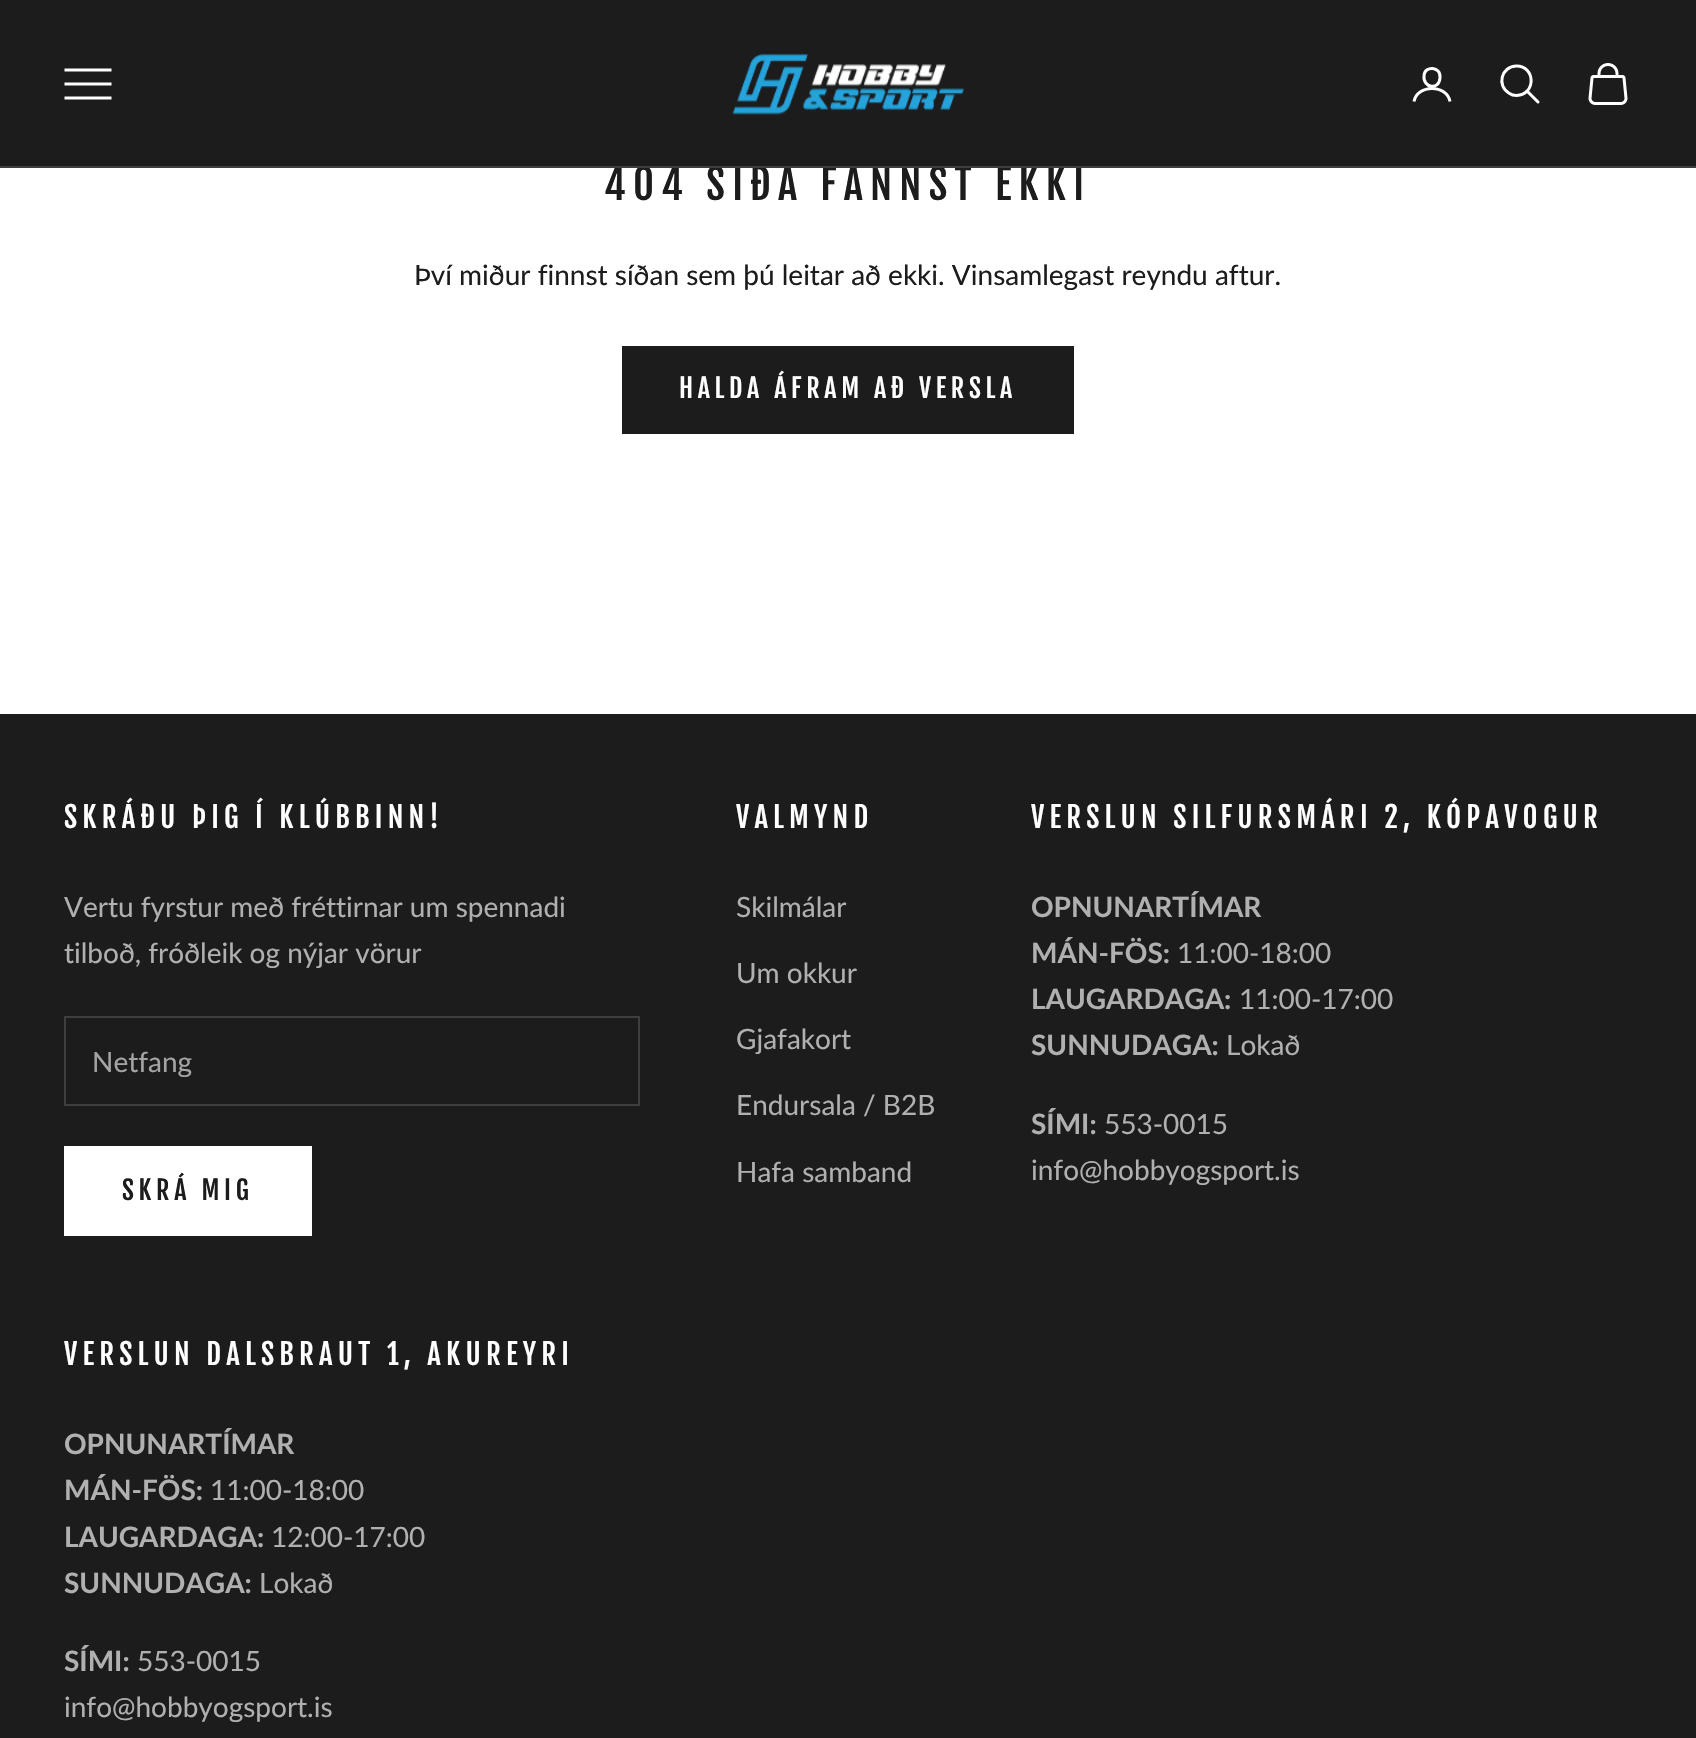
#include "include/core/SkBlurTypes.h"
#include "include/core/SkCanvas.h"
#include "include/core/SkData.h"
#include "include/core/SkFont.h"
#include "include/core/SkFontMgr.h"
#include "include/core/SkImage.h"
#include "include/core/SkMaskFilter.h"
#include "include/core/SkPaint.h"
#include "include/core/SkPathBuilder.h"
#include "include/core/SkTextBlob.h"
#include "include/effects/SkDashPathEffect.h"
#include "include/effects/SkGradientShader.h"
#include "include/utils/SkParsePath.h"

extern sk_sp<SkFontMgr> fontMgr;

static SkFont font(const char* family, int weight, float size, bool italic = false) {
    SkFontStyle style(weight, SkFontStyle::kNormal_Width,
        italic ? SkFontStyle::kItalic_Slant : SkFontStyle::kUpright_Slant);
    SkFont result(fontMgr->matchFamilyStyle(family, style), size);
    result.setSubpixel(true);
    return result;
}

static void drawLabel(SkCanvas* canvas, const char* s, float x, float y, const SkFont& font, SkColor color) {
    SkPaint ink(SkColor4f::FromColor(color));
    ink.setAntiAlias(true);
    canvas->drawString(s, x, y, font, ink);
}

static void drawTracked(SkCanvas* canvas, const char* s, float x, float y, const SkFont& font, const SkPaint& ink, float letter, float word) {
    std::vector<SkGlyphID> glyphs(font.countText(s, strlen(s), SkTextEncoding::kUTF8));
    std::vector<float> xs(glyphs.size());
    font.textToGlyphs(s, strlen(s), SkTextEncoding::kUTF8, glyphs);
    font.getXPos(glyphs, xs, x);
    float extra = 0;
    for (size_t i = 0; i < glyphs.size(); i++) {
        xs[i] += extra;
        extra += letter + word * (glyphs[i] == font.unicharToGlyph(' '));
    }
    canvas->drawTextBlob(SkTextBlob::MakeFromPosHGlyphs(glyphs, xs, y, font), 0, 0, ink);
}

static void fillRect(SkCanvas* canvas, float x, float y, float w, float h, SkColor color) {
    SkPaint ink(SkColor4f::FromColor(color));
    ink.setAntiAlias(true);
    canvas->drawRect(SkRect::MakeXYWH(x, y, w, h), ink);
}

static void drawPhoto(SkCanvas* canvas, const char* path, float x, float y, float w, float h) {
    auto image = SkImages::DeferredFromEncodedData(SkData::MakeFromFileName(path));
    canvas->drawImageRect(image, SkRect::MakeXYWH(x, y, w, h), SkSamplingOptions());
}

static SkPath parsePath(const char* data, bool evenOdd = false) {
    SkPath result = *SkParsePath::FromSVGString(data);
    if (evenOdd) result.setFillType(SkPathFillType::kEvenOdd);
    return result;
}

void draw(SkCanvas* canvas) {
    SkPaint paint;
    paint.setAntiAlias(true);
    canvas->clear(0xFFFFFFFF);
    fillRect(canvas, 0, 0, 1696, 166, 0xFF1C1C1C);
    SkFont font1 = font("Fjalla One", 400, 40.6f);
    paint.setColor(0xFF1C1C1C);
    drawTracked(canvas, "404 SÍÐA FANNST EKKI", 604, 200, font1, paint, 7.3f, 0);
    fillRect(canvas, 0, 166, 1696, 2, 0xFF3E3E3E);
    paint.setStroke(true);
    paint.setStrokeWidth(3);
    paint.setStrokeCap(SkPaint::kSquare_Cap);
    paint.setColor(0xFFFFFFFF);
    canvas->drawPath(parsePath("M66 98H110M66 84H110M66 70H110"), paint);
    drawPhoto(canvas, "assets/img1.png", 732, 53, 232, 62);
    paint.setStrokeCap(SkPaint::kRound_Cap);
    paint.setStrokeJoin(SkPaint::kRound_Join);
    canvas->drawPath(parsePath("M1440 77.5C1439.5 91 1422.5 88 1424 75.5C1425 65 1441 66.5 1440 77.5Z"), paint);
    paint.setStrokeCap(SkPaint::kButt_Cap);
    paint.setStrokeJoin(SkPaint::kMiter_Join);
    canvas->drawPath(parsePath("M1414 101.5C1417 84 1447 84 1450 101.5"), paint);
    canvas->drawPath(parsePath("M1516.5 66C1501.5 66 1496 86 1509.5 93.5C1511.5 95 1514 95.5 1516.5 95.5C1536.5 94.5 1535.5 66 1516.5 66Z"), paint);
    paint.setStrokeCap(SkPaint::kRound_Cap);
    canvas->drawPath(parsePath("M1527.5 91.5L1538 102"), paint);
    drawPhoto(canvas, "assets/img2.png", 1588, 63, 40, 42);
    SkFont font2 = font("Lato", 400, 28);
    drawLabel(canvas, "Því miður finnst síðan sem þú leitar að ekki. Vinsamlegast reyndu aftur.", 414, 285, font2, 0xFF1C1C1C);
    paint.setStroke(false);
    paint.setColor(0xFF1C1C1C);
    canvas->drawRect(SkRect::MakeXYWH(623, 347, 450, 86), paint);
    paint.setStroke(true);
    paint.setStrokeWidth(2);
    paint.setStrokeCap(SkPaint::kButt_Cap);
    canvas->drawRect(SkRect::MakeXYWH(623, 347, 450, 86), paint);
    SkFont font3 = font("Fjalla One", 400, 26);
    paint.setStroke(false);
    paint.setColor(0xFFFFFFFF);
    drawTracked(canvas, "HALDA ÁFRAM AÐ VERSLA", 679, 398, font3, paint, 4.7f, 0);
    fillRect(canvas, 0, 714, 1696, 1024, 0xFF1C1C1C);
    SkFont font4 = font("Fjalla One", 400, 28.75f);
    drawTracked(canvas, "SKRÁÐU ÞIG Í KLÚBBINN!", 64, 828, font4, paint, 5.2f, 0);
    drawLabel(canvas, "Vertu fyrstur með fréttirnar um spennadi", 64, 917, font2, 0xFFB0B0B0);
    drawLabel(canvas, "tilboð, fróðleik og nýjar vörur", 64, 963, font2, 0xFFB0B0B0);
    paint.setStroke(true);
    paint.setColor(0xFF3E3E3E);
    canvas->drawRect(SkRect::MakeXYWH(65, 1017, 574, 88), paint);
    drawLabel(canvas, "Netfang", 92, 1072, font2, 0xFFA4A4A4);
    paint.setStroke(false);
    paint.setColor(0xFFFFFFFF);
    canvas->drawRect(SkRect::MakeXYWH(65, 1147, 246, 88), paint);
    paint.setStroke(true);
    canvas->drawRect(SkRect::MakeXYWH(65, 1147, 246, 88), paint);
    paint.setStroke(false);
    paint.setColor(0xFF1C1C1C);
    drawTracked(canvas, "SKRÁ MIG", 122, 1200, font3, paint, 4.7f, 0);
    paint.setColor(0xFFFFFFFF);
    drawTracked(canvas, "VALMYND", 736, 828, font4, paint, 5.2f, 0);
    drawLabel(canvas, "Skilmálar", 736, 917, font2, 0xFFB0B0B0);
    drawLabel(canvas, "Um okkur", 736, 983, font2, 0xFFB0B0B0);
    drawLabel(canvas, "Gjafakort", 736, 1049, font2, 0xFFB0B0B0);
    drawLabel(canvas, "Endursala / B2B", 736, 1115, font2, 0xFFB0B0B0);
    drawLabel(canvas, "Hafa samband", 736, 1182, font2, 0xFFB0B0B0);
    drawTracked(canvas, "VERSLUN SILFURSMÁRI 2, KÓPAVOGUR", 1031, 828, font4, paint, 5.2f, 0);
    SkFont font5 = font("Lato", 700, 28);
    drawLabel(canvas, "OPNUNARTÍMAR", 1031, 917, font5, 0xFFB0B0B0);
    drawLabel(canvas, "MÁN-FÖS:", 1031, 963, font5, 0xFFB0B0B0);
    drawLabel(canvas, "11:00-18:00", 1177, 963, font2, 0xFFB0B0B0);
    drawLabel(canvas, "LAUGARDAGA:", 1031, 1009, font5, 0xFFB0B0B0);
    drawLabel(canvas, "11:00-17:00", 1239, 1009, font2, 0xFFB0B0B0);
    drawLabel(canvas, "SUNNUDAGA:", 1031, 1055, font5, 0xFFB0B0B0);
    drawLabel(canvas, "Lokað", 1226, 1055, font2, 0xFFB0B0B0);
    drawLabel(canvas, "SÍMI:", 1031, 1134, font5, 0xFFB0B0B0);
    drawLabel(canvas, "553-0015", 1104, 1134, font2, 0xFFB0B0B0);
    drawLabel(canvas, "info@hobbyogsport.is", 1031, 1180, font2, 0xFFB0B0B0);
    drawTracked(canvas, "VERSLUN DALSBRAUT 1, AKUREYRI", 64, 1365, font4, paint, 5.2f, 0);
    drawLabel(canvas, "OPNUNARTÍMAR", 64, 1454, font5, 0xFFB0B0B0);
    drawLabel(canvas, "MÁN-FÖS:", 64, 1500, font5, 0xFFB0B0B0);
    drawLabel(canvas, "11:00-18:00", 210, 1500, font2, 0xFFB0B0B0);
    drawLabel(canvas, "LAUGARDAGA:", 64, 1547, font5, 0xFFB0B0B0);
    drawLabel(canvas, "12:00-17:00", 271, 1547, font2, 0xFFB0B0B0);
    drawLabel(canvas, "SUNNUDAGA:", 64, 1593, font5, 0xFFB0B0B0);
    drawLabel(canvas, "Lokað", 259, 1593, font2, 0xFFB0B0B0);
    drawLabel(canvas, "SÍMI:", 64, 1671, font5, 0xFFB0B0B0);
    drawLabel(canvas, "553-0015", 137, 1671, font2, 0xFFB0B0B0);
    drawLabel(canvas, "info@hobbyogsport.is", 64, 1717, font2, 0xFFB0B0B0);
}
